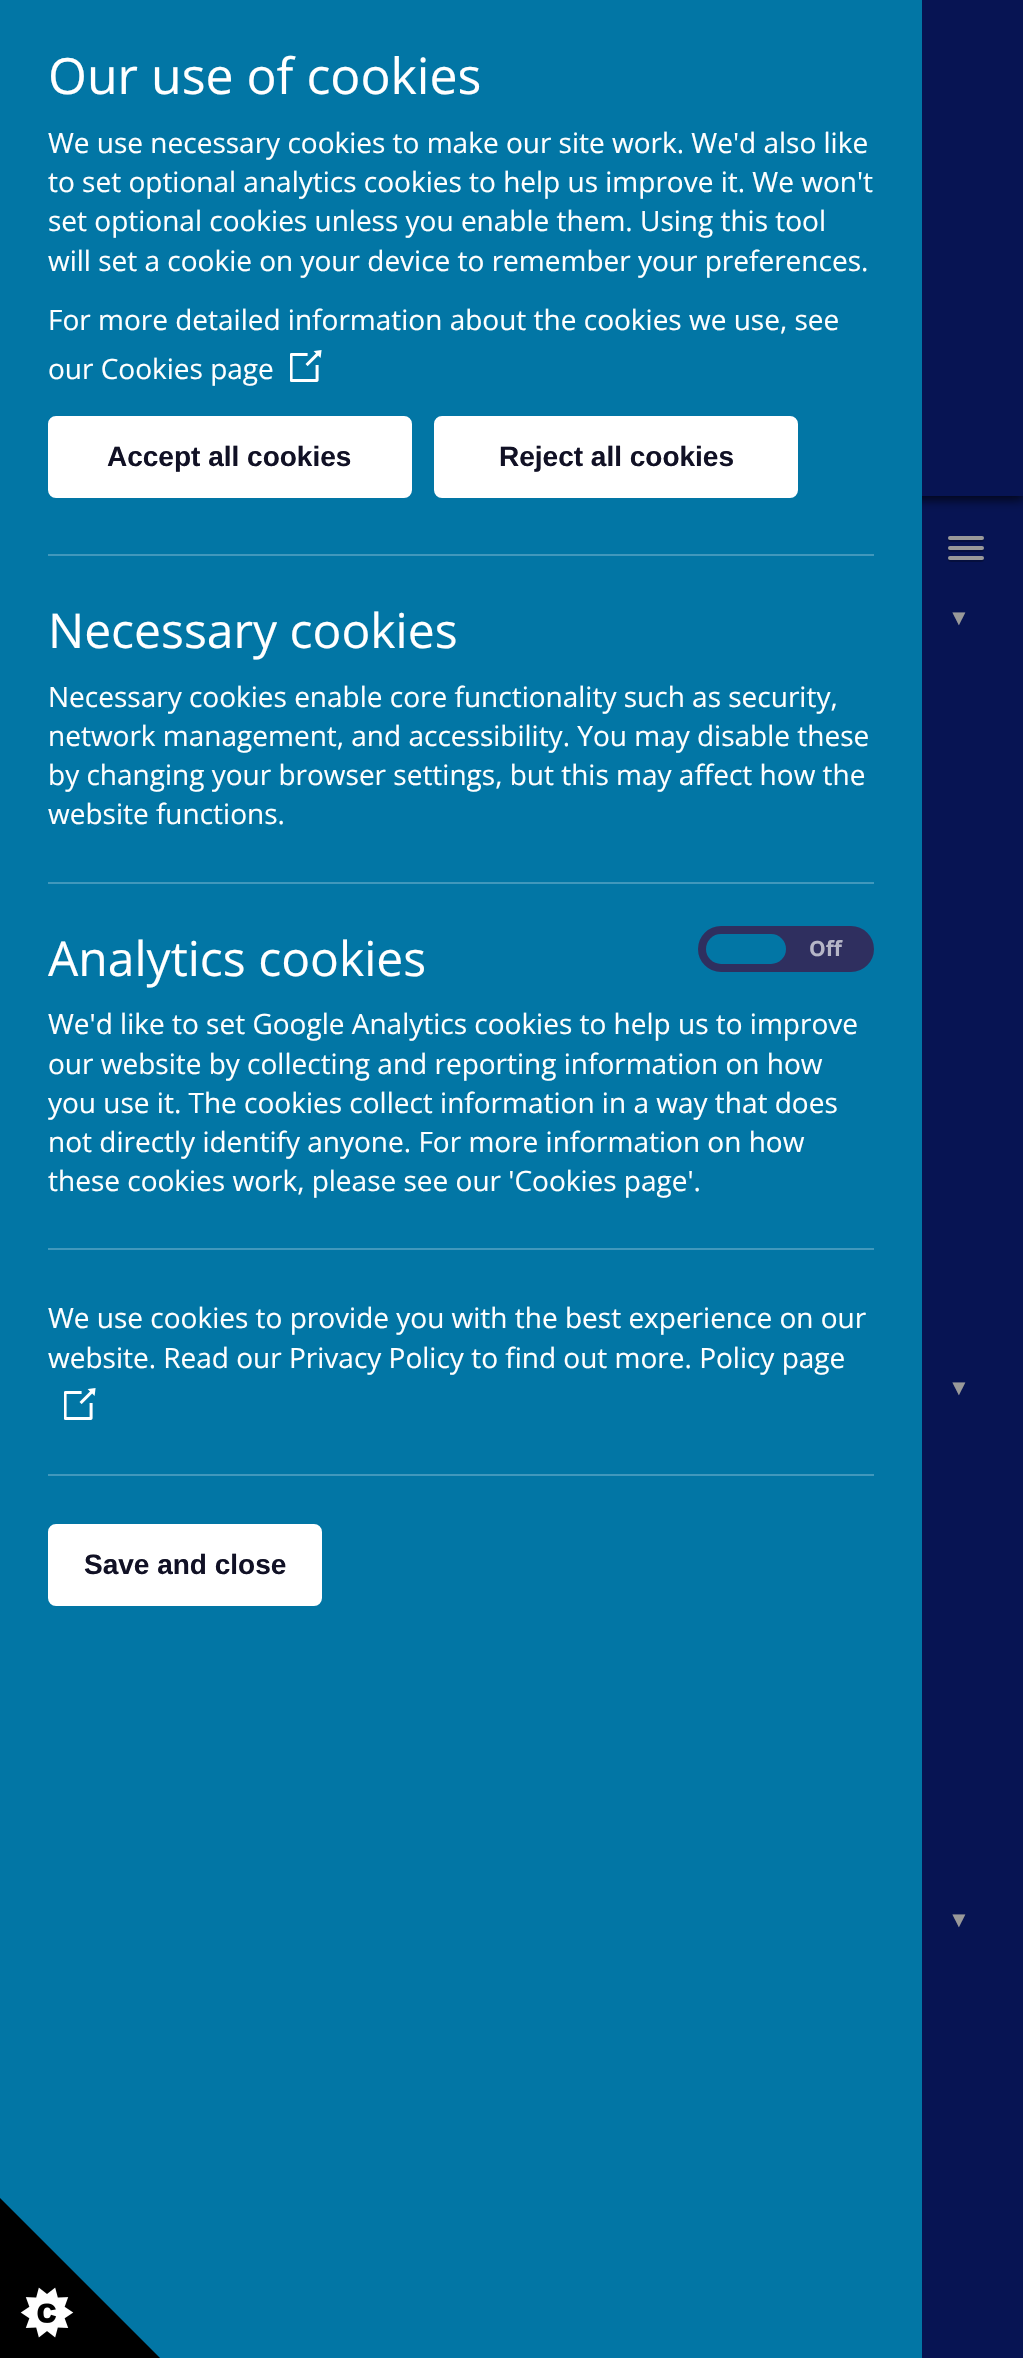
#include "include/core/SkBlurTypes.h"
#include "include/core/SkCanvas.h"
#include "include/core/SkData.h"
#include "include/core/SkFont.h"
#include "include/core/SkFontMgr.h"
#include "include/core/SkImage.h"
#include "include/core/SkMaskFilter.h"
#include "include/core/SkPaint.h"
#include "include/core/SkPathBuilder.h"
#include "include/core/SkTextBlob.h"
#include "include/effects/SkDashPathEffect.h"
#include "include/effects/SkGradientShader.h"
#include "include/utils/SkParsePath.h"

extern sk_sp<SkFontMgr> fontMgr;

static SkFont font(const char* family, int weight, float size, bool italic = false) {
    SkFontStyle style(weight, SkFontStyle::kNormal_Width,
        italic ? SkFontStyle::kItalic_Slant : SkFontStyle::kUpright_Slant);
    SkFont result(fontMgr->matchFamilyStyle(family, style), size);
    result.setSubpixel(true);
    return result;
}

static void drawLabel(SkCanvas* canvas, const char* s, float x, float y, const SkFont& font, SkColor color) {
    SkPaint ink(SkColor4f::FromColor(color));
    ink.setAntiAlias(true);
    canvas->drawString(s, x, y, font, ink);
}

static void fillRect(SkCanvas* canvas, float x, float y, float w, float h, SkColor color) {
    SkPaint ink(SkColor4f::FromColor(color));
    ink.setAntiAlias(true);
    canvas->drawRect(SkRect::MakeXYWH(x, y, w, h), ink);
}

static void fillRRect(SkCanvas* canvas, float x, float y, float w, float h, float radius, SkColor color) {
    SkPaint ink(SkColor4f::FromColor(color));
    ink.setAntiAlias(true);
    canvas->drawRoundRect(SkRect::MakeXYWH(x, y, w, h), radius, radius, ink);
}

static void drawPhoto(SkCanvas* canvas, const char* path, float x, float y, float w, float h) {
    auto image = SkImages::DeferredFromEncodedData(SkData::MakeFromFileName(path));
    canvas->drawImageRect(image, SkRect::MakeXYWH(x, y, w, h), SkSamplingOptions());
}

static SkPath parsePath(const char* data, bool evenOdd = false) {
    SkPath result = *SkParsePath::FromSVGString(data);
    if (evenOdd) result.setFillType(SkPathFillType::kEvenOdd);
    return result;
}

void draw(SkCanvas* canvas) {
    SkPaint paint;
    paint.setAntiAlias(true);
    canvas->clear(0xFF071453);
    paint.setColor(0xB3000000);
    paint.setMaskFilter(SkMaskFilter::MakeBlur(kNormal_SkBlurStyle, 5));
    canvas->drawRect(SkRect::MakeXYWH(0, 4, 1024, 496), paint);
    paint.setMaskFilter(nullptr);
    fillRect(canvas, 922, 0, 101, 496, 0xFF071453);
    fillRect(canvas, 0, 0, 922, 2358, 0xFF0276A5);
    SkFont font1 = font("Open Sans", 400, 50);
    drawLabel(canvas, "Our use of cookies", 48, 94, font1, 0xFFFFFFFF);
    SkFont font2 = font("Open Sans", 400, 28);
    drawLabel(canvas, "We use necessary cookies to make our site work. We'd also like", 48, 153, font2, 0xFFFFFFFF);
    drawLabel(canvas, "to set optional analytics cookies to help us improve it. We won't", 48, 192, font2, 0xFFFFFFFF);
    drawLabel(canvas, "set optional cookies unless you enable them. Using this tool", 48, 231, font2, 0xFFFFFFFF);
    drawLabel(canvas, "will set a cookie on your device to remember your preferences.", 48, 271, font2, 0xFFFFFFFF);
    drawLabel(canvas, "For more detailed information about the cookies we use, see", 48, 330, font2, 0xFFFFFFFF);
    drawLabel(canvas, "our Cookies page", 48, 379, font2, 0xFFFFFFFF);
    drawPhoto(canvas, "assets/img1.png", 290, 350, 32, 32);
    paint.setColor(0xFFFFFFFF);
    canvas->drawRoundRect(SkRect::MakeXYWH(50, 418, 360, 78), 6, 6, paint);
    paint.setStroke(true);
    paint.setStrokeWidth(4);
    canvas->drawRoundRect(SkRect::MakeXYWH(50, 418, 360, 78), 6, 6, paint);
    SkFont font3 = font("Liberation Sans", 700, 28);
    drawLabel(canvas, "Accept all cookies", 107, 466, font3, 0xFF111125);
    paint.setStroke(false);
    canvas->drawRoundRect(SkRect::MakeXYWH(436, 418, 360, 78), 6, 6, paint);
    paint.setStroke(true);
    canvas->drawRoundRect(SkRect::MakeXYWH(436, 418, 360, 78), 6, 6, paint);
    drawLabel(canvas, "Reject all cookies", 499, 466, font3, 0xFF111125);
    fillRect(canvas, 48, 554, 826, 2, 0xFF4198BC);
    SkFont font4 = font("Open Sans", 400, 48);
    drawLabel(canvas, "Necessary cookies", 48, 648, font4, 0xFFFFFFFF);
    drawLabel(canvas, "Necessary cookies enable core functionality such as security,", 48, 707, font2, 0xFFFFFFFF);
    drawLabel(canvas, "network management, and accessibility. You may disable these", 48, 746, font2, 0xFFFFFFFF);
    drawLabel(canvas, "by changing your browser settings, but this may affect how the", 48, 785, font2, 0xFFFFFFFF);
    drawLabel(canvas, "website functions.", 48, 824, font2, 0xFFFFFFFF);
    fillRect(canvas, 48, 882, 826, 2, 0xFF4198BC);
    drawLabel(canvas, "Analytics cookies", 48, 976, font4, 0xFFFFFFFF);
    paint.setStroke(false);
    paint.setColor(0xFF2F2F5F);
    canvas->drawRoundRect(SkRect::MakeXYWH(702, 930, 168, 38), 19, 19, paint);
    paint.setStroke(true);
    paint.setStrokeWidth(8);
    canvas->drawRoundRect(SkRect::MakeXYWH(702, 930, 168, 38), 19, 19, paint);
    fillRRect(canvas, 706, 934, 80, 30, 15, 0xFF0276A5);
    SkFont font5 = font("Open Sans", 700, 21);
    drawLabel(canvas, "Off", 809, 956, font5, 0xFFB6B6C7);
    drawLabel(canvas, "We'd like to set Google Analytics cookies to help us to improve", 48, 1034, font2, 0xFFFFFFFF);
    drawLabel(canvas, "our website by collecting and reporting information on how", 48, 1074, font2, 0xFFFFFFFF);
    drawLabel(canvas, "you use it. The cookies collect information in a way that does", 48, 1113, font2, 0xFFFFFFFF);
    drawLabel(canvas, "not directly identify anyone. For more information on how", 48, 1152, font2, 0xFFFFFFFF);
    drawLabel(canvas, "these cookies work, please see our 'Cookies page'.", 48, 1191, font2, 0xFFFFFFFF);
    fillRect(canvas, 48, 1248, 826, 2, 0xFF4198BC);
    drawLabel(canvas, "We use cookies to provide you with the best experience on our", 48, 1328, font2, 0xFFFFFFFF);
    drawLabel(canvas, "website. Read our Privacy Policy to find out more. Policy page", 48, 1368, font2, 0xFFFFFFFF);
    drawPhoto(canvas, "assets/img1.png", 64, 1388, 32, 32);
    fillRect(canvas, 48, 1474, 826, 2, 0xFF4198BC);
    paint.setStroke(false);
    paint.setColor(0xFFFFFFFF);
    canvas->drawRoundRect(SkRect::MakeXYWH(50, 1526, 270, 78), 6, 6, paint);
    paint.setStroke(true);
    paint.setStrokeWidth(4);
    canvas->drawRoundRect(SkRect::MakeXYWH(50, 1526, 270, 78), 6, 6, paint);
    drawLabel(canvas, "Save and close", 84, 1574, font3, 0xFF111125);
    drawPhoto(canvas, "assets/img2.png", 0, 2198, 160, 160);
    paint.setStroke(false);
    paint.setColor(0xFF050F3E);
    canvas->drawPath(parsePath("M948.5 539C946 543 955 542 955.5 542H976.5C977 542 986 543 983.5 539C983.5 539.5 982.5 540 982 540H950C949.5 540 948.5 539.5 948.5 539Z"), paint);
    fillRRect(canvas, 948, 536, 36, 4, 2, 0xFF999999);
    canvas->drawPath(parsePath("M948.5 549C946 553 955 552 955.5 552H976.5C977 552 986 553 983.5 549C983.5 549.5 982.5 550 982 550H950C949.5 550 948.5 549.5 948.5 549Z"), paint);
    fillRRect(canvas, 948, 546, 36, 4, 2, 0xFF999999);
    canvas->drawPath(parsePath("M948.5 559C946 563 955 562 955.5 562H976.5C977 562 986 563 983.5 559C983.5 559.5 982.5 560 982 560H950C949.5 560 948.5 559.5 948.5 559Z"), paint);
    fillRRect(canvas, 948, 556, 36, 4, 2, 0xFF999999);
    SkFont font6 = font("Liberation Serif", 400, 22);
    drawLabel(canvas, "▼", 948, 625, font6, 0xFF999999);
    drawLabel(canvas, "▼", 948, 1395, font6, 0xFF999999);
    drawLabel(canvas, "▼", 948, 1927, font6, 0xFF999999);
}
